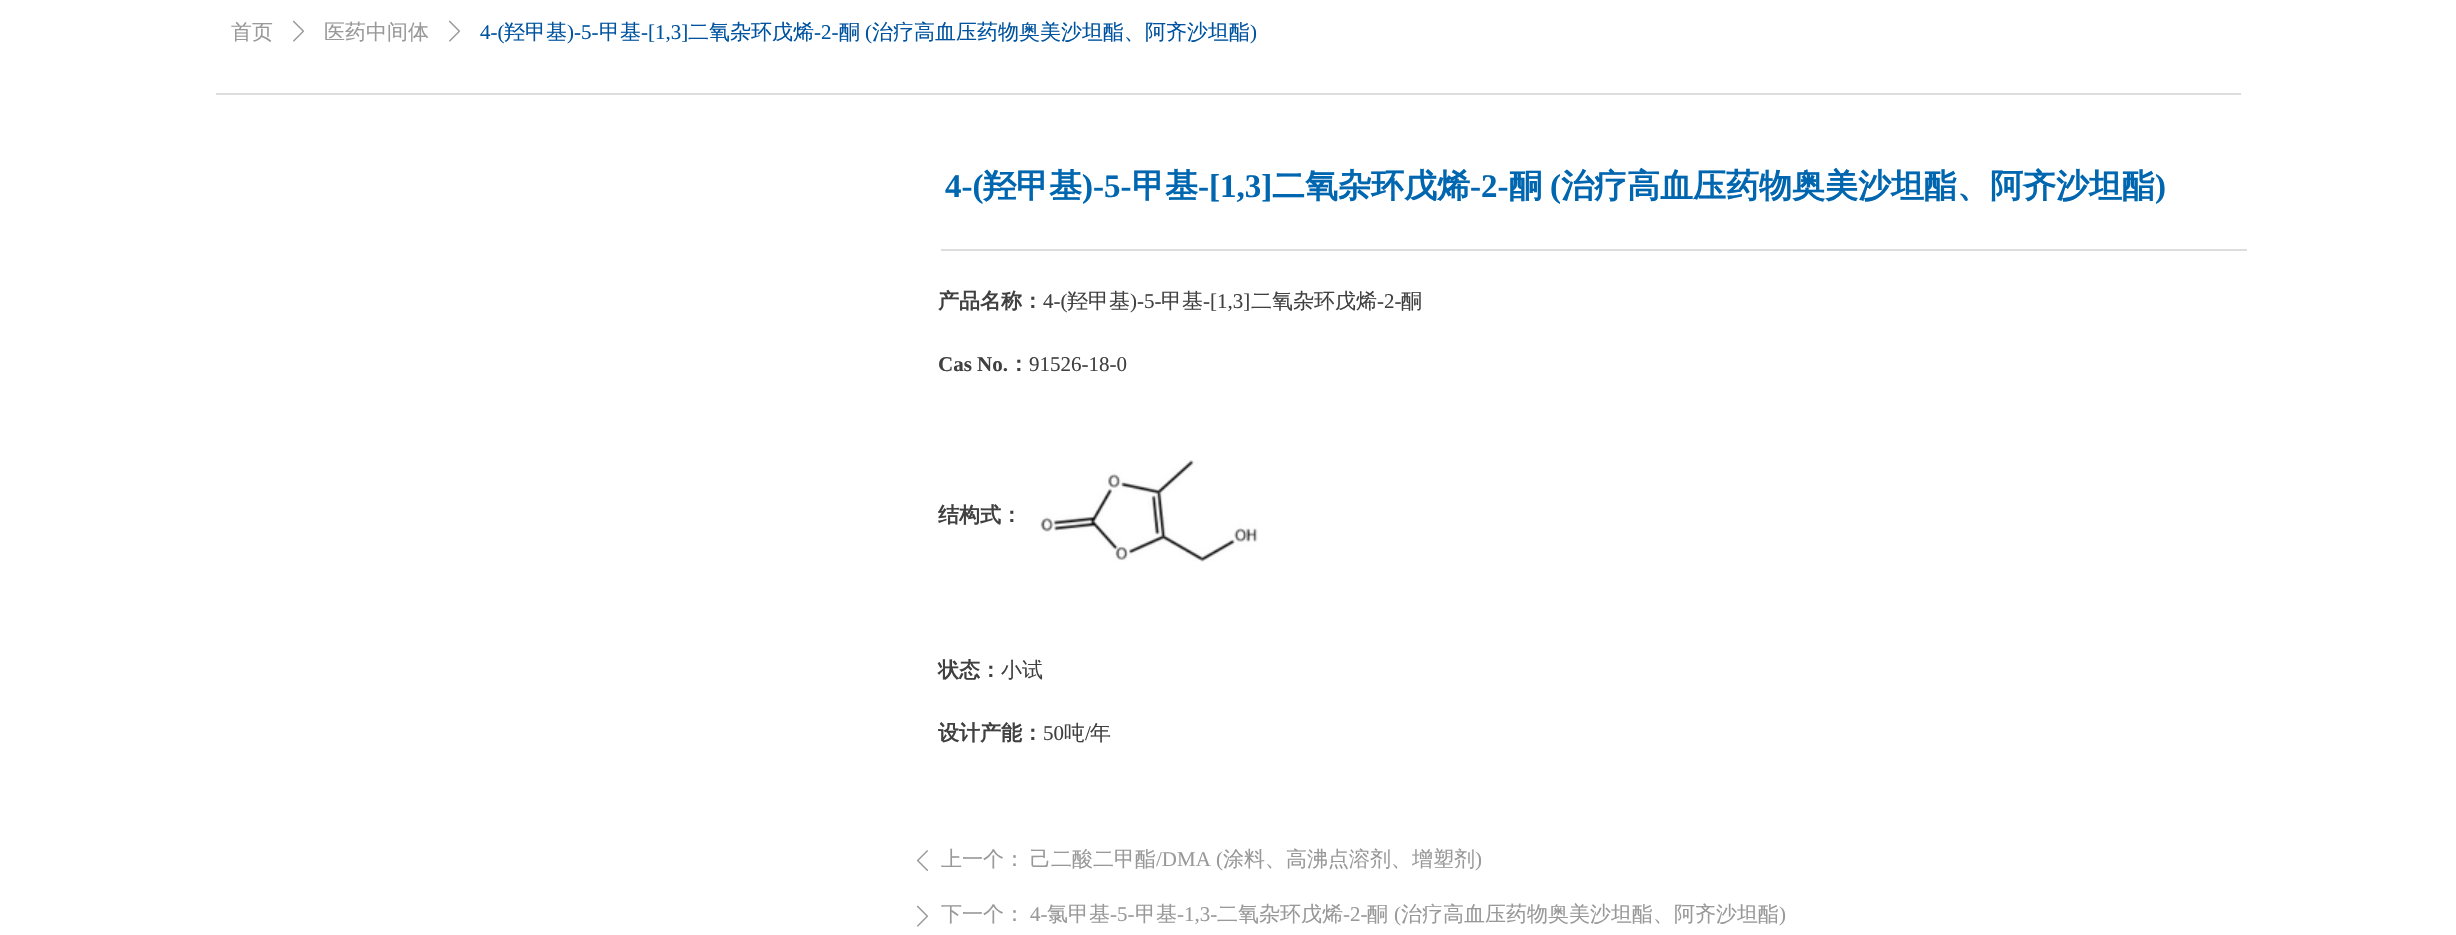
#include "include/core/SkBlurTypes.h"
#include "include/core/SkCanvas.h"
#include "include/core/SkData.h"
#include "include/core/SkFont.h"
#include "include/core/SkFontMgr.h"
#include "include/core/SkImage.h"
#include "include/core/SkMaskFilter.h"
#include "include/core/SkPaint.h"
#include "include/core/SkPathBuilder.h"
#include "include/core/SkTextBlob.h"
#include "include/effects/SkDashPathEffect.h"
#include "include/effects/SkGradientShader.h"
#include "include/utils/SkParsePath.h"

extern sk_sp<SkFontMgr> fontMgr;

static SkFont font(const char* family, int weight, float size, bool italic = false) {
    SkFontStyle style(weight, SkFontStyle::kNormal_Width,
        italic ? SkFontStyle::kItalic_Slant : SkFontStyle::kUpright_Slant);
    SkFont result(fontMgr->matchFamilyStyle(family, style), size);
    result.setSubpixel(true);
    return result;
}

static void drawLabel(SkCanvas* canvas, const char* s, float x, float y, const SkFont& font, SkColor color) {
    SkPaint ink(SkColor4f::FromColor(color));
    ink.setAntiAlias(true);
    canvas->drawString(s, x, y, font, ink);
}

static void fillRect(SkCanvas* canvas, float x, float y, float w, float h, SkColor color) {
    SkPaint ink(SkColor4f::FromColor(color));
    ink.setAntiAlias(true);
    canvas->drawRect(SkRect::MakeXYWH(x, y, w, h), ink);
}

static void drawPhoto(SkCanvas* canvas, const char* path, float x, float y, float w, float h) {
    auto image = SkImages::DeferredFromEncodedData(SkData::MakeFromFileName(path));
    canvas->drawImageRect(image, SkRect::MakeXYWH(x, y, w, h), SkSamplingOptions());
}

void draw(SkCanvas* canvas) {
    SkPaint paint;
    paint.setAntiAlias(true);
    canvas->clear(0xFFFFFFFF);
    SkFont font1 = font("WenQuanYi Zen Hei", 500, 21);
    drawLabel(canvas, "首页", 231, 39, font1, 0xFF999999);
    drawPhoto(canvas, "assets/img1.png", 292, 20, 12, 22);
    drawLabel(canvas, "医药中间体", 324, 39, font1, 0xFF999999);
    drawPhoto(canvas, "assets/img1.png", 448, 20, 12, 22);
    SkFont font2 = font("Liberation Serif", 400, 21);
    drawLabel(canvas, "4-(", 480, 39, font2, 0xFF00539F);
    drawLabel(canvas, "羟甲基", 504, 39, font1, 0xFF00539F);
    drawLabel(canvas, ")-5-", 567, 39, font2, 0xFF00539F);
    drawLabel(canvas, "甲基", 599, 39, font1, 0xFF00539F);
    drawLabel(canvas, "-[1,3]", 641, 39, font2, 0xFF00539F);
    drawLabel(canvas, "二氧杂环戊烯", 688, 39, font1, 0xFF00539F);
    drawLabel(canvas, "-2-", 814, 39, font2, 0xFF00539F);
    drawLabel(canvas, "酮", 839, 39, font1, 0xFF00539F);
    drawLabel(canvas, "(", 865, 39, font2, 0xFF00539F);
    drawLabel(canvas, "治疗高血压药物奥美沙坦酯、阿齐沙坦酯", 872, 39, font1, 0xFF00539F);
    drawLabel(canvas, ")", 1250, 39, font2, 0xFF00539F);
    fillRect(canvas, 216, 93, 2025, 2, 0xFFDDDDDD);
    SkFont font3 = font("Liberation Serif", 700, 33);
    drawLabel(canvas, "4-(", 945, 197, font3, 0xFF0066AF);
    SkFont font4 = font("WenQuanYi Zen Hei", 700, 33);
    drawLabel(canvas, "羟甲基", 983, 197, font4, 0xFF0066AF);
    drawLabel(canvas, ")-5-", 1082, 197, font3, 0xFF0066AF);
    drawLabel(canvas, "甲基", 1132, 197, font4, 0xFF0066AF);
    drawLabel(canvas, "-[1,3]", 1198, 197, font3, 0xFF0066AF);
    drawLabel(canvas, "二氧杂环戊烯", 1272, 197, font4, 0xFF0066AF);
    drawLabel(canvas, "-2-", 1470, 197, font3, 0xFF0066AF);
    drawLabel(canvas, "酮", 1509, 197, font4, 0xFF0066AF);
    drawLabel(canvas, "(", 1550, 197, font3, 0xFF0066AF);
    drawLabel(canvas, "治疗高血压药物奥美沙坦酯、阿齐沙坦酯", 1561, 197, font4, 0xFF0066AF);
    drawLabel(canvas, ")", 2155, 197, font3, 0xFF0066AF);
    fillRect(canvas, 941, 249, 1306, 2, 0xFFDDDDDD);
    SkFont font5 = font("WenQuanYi Zen Hei", 700, 21);
    drawLabel(canvas, "产品名称：", 938, 308, font5, 0xFF404040);
    drawLabel(canvas, "4-(", 1043, 308, font2, 0xFF404040);
    drawLabel(canvas, "羟甲基", 1067, 308, font1, 0xFF404040);
    drawLabel(canvas, ")-5-", 1130, 308, font2, 0xFF404040);
    drawLabel(canvas, "甲基", 1161, 308, font1, 0xFF404040);
    drawLabel(canvas, "-[1,3]", 1203, 308, font2, 0xFF404040);
    drawLabel(canvas, "二氧杂环戊烯", 1251, 308, font1, 0xFF404040);
    drawLabel(canvas, "-2-", 1377, 308, font2, 0xFF404040);
    drawLabel(canvas, "酮", 1401, 308, font1, 0xFF404040);
    SkFont font6 = font("Liberation Serif", 700, 21);
    drawLabel(canvas, "Cas No.", 938, 371, font6, 0xFF404040);
    drawLabel(canvas, "：", 1008, 371, font5, 0xFF404040);
    drawLabel(canvas, "91526-18-0", 1029, 371, font2, 0xFF404040);
    drawLabel(canvas, "结构式：", 938, 522, font5, 0xFF404040);
    drawPhoto(canvas, "assets/img2.png", 1040, 460, 218, 102);
    drawLabel(canvas, "状态：", 938, 677, font5, 0xFF404040);
    drawLabel(canvas, "小试", 1001, 677, font1, 0xFF404040);
    drawLabel(canvas, "设计产能：", 938, 740, font5, 0xFF404040);
    drawLabel(canvas, "50", 1043, 740, font2, 0xFF404040);
    drawLabel(canvas, "吨", 1064, 740, font1, 0xFF404040);
    drawLabel(canvas, "/", 1085, 740, font2, 0xFF404040);
    drawLabel(canvas, "年", 1090, 740, font1, 0xFF404040);
    drawPhoto(canvas, "assets/img3.png", 917, 850, 12, 21);
    drawLabel(canvas, "上一个：", 941, 866, font1, 0xFF999999);
    drawLabel(canvas, "己二酸二甲酯", 1030, 866, font1, 0xFF999999);
    drawLabel(canvas, "/DMA (", 1156, 866, font2, 0xFF999999);
    drawLabel(canvas, "涂料、高沸点溶剂、增塑剂", 1223, 866, font1, 0xFF999999);
    drawLabel(canvas, ")", 1475, 866, font2, 0xFF999999);
    drawPhoto(canvas, "assets/img1.png", 916, 905, 12, 22);
    drawLabel(canvas, "下一个：", 941, 921, font1, 0xFF999999);
    drawLabel(canvas, "4-", 1030, 921, font2, 0xFF999999);
    drawLabel(canvas, "氯甲基", 1047, 921, font1, 0xFF999999);
    drawLabel(canvas, "-5-", 1110, 921, font2, 0xFF999999);
    drawLabel(canvas, "甲基", 1135, 921, font1, 0xFF999999);
    drawLabel(canvas, "-1,3-", 1177, 921, font2, 0xFF999999);
    drawLabel(canvas, "二氧杂环戊烯", 1217, 921, font1, 0xFF999999);
    drawLabel(canvas, "-2-", 1343, 921, font2, 0xFF999999);
    drawLabel(canvas, "酮", 1367, 921, font1, 0xFF999999);
    drawLabel(canvas, "(", 1394, 921, font2, 0xFF999999);
    drawLabel(canvas, "治疗高血压药物奥美沙坦酯、阿齐沙坦酯", 1401, 921, font1, 0xFF999999);
    drawLabel(canvas, ")", 1779, 921, font2, 0xFF999999);
}
